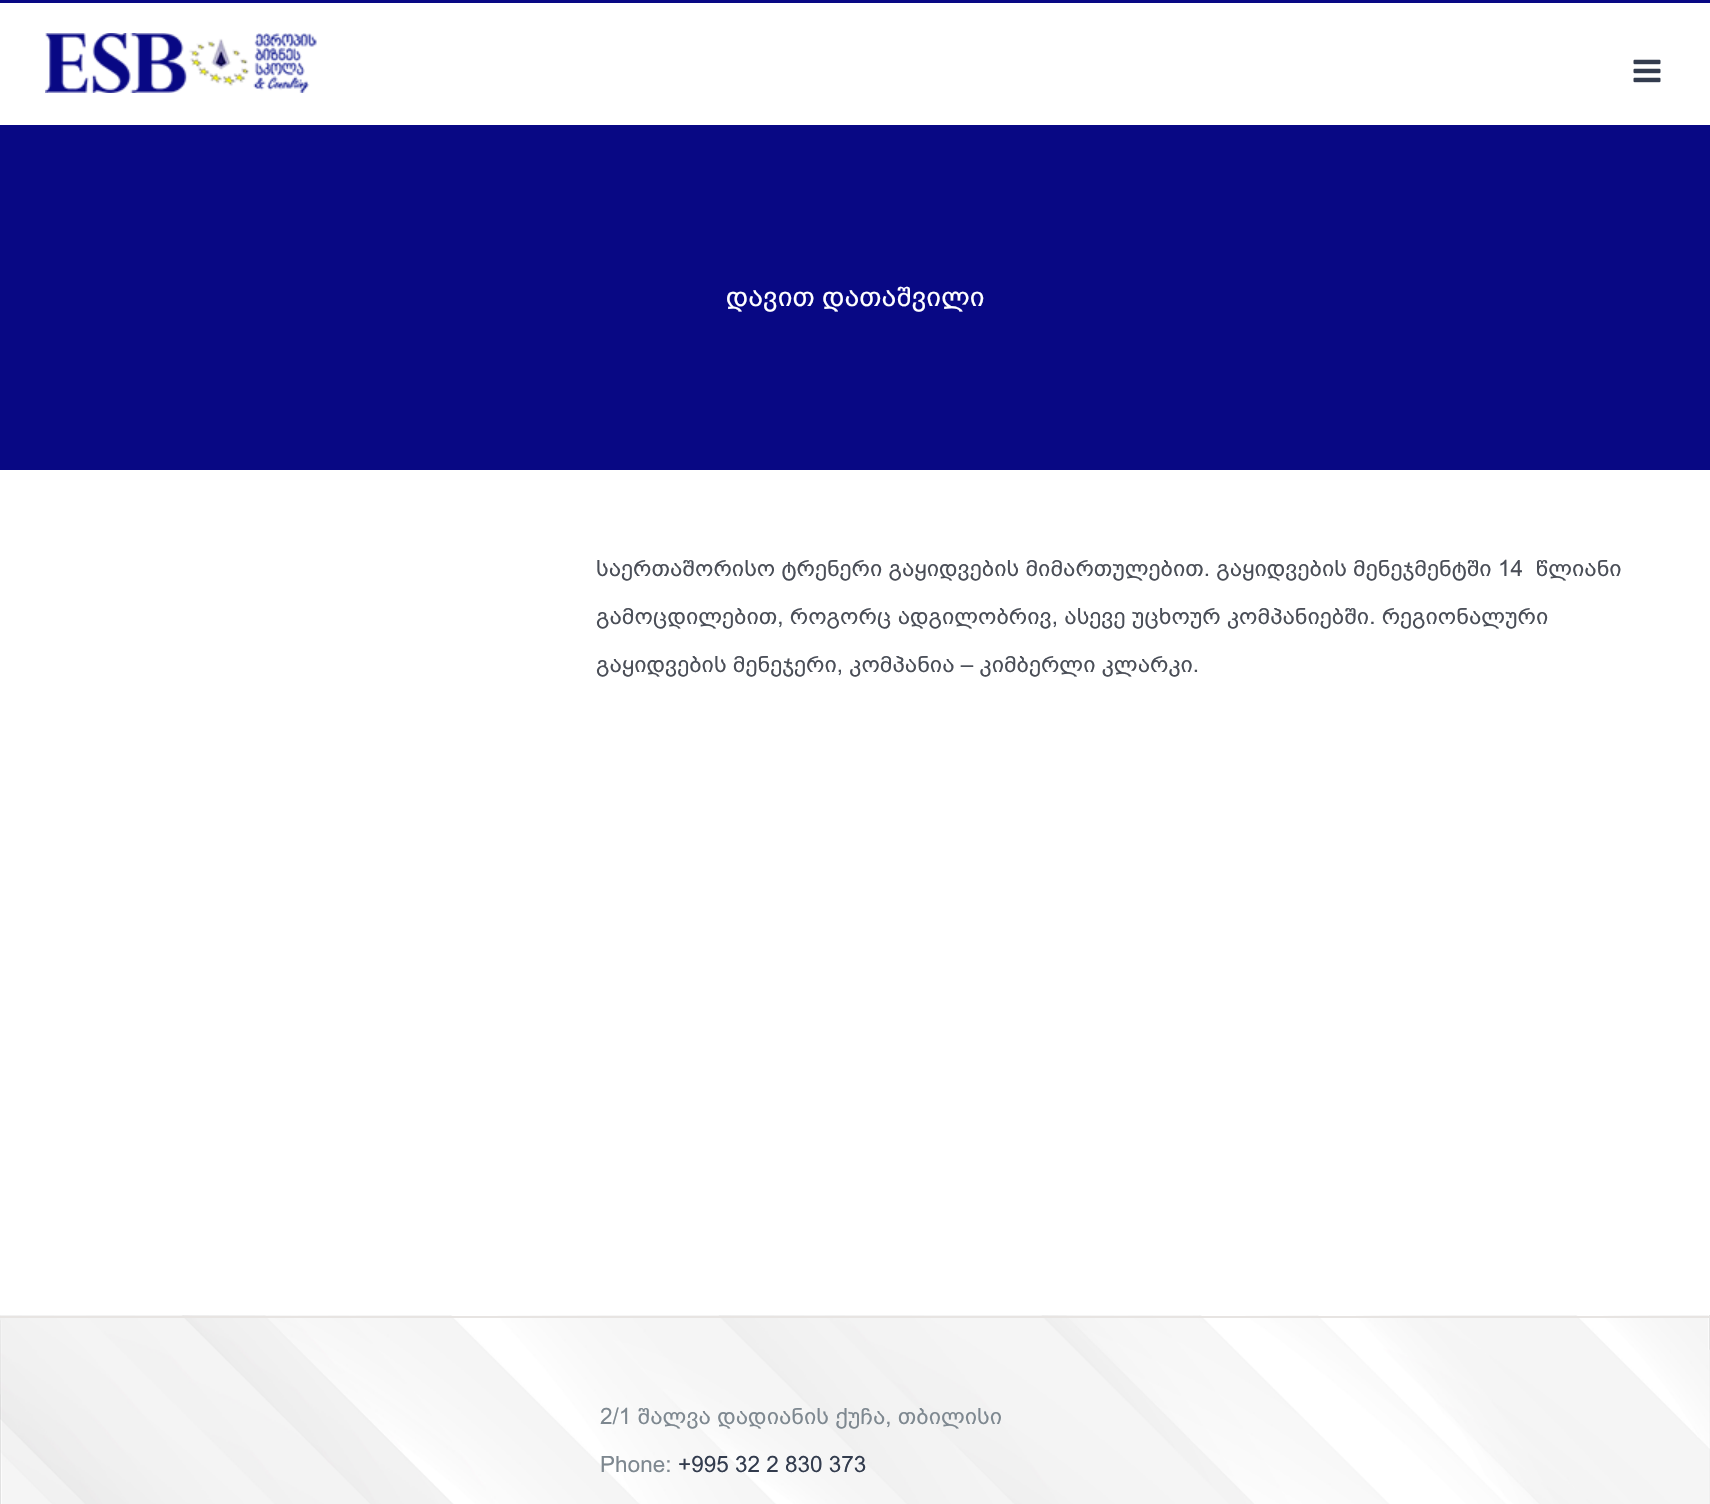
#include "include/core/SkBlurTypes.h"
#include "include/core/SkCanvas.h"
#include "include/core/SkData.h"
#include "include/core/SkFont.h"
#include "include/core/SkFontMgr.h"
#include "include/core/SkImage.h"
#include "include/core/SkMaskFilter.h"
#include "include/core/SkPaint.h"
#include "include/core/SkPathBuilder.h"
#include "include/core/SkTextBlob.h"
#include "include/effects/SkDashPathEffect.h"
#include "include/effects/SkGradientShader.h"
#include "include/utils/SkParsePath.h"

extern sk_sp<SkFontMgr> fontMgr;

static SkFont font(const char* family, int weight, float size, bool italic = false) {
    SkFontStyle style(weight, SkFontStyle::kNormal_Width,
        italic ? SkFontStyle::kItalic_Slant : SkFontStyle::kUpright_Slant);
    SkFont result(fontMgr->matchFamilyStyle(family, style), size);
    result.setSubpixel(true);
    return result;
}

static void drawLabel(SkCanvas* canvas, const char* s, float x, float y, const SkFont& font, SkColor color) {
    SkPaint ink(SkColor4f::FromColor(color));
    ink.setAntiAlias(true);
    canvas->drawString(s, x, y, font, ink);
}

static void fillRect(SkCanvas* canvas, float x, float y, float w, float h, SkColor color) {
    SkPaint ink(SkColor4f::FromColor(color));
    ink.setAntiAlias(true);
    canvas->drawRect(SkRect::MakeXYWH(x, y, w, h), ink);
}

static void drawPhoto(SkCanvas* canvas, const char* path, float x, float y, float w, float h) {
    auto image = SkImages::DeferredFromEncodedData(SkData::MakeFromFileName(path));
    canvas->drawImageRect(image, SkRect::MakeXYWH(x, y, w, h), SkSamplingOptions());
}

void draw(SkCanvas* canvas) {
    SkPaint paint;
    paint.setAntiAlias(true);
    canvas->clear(0xFFFFFFFF);
    fillRect(canvas, 0, 0, 1710, 3, 0xFF080884);
    drawPhoto(canvas, "assets/img1.png", 45, 33, 272, 60);
    drawPhoto(canvas, "assets/img2.png", 1633, 59, 28, 24);
    fillRect(canvas, 0, 125, 1710, 345, 0xFF080884);
    SkFont font1 = font("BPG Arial", 400, 27);
    drawLabel(canvas, "დავით დათაშვილი", 726, 306, font1, 0xFFFFFFFF);
    SkFont font2 = font("BPG Arial", 400, 22.5f);
    drawLabel(canvas, "საერთაშორისო ტრენერი გაყიდვების მიმართულებით. გაყიდვების მენეჯმენტში 14  წლიანი", 596, 576, font2, 0xFF4A4E57);
    drawLabel(canvas, "გამოცდილებით, როგორც ადგილობრივ, ასევე უცხოურ კომპანიებში. რეგიონალური", 596, 624, font2, 0xFF4A4E57);
    drawLabel(canvas, "გაყიდვების მენეჯერი, კომპანია – კიმბერლი კლარკი.", 596, 672, font2, 0xFF4A4E57);
    drawPhoto(canvas, "assets/img3.png", 0, 1315, 1710, 189);
    fillRect(canvas, 0, 1316, 1710, 2, 0xFFE7E4E2);
    drawLabel(canvas, "2/1 შალვა დადიანის ქუჩა, თბილისი", 600, 1424, font2, 0xFF7E8890);
    drawLabel(canvas, "Phone:", 600, 1472, font2, 0xFF7E8890);
    drawLabel(canvas, "+995 32 2 830 373", 678, 1472, font2, 0xFF333C4E);
}
